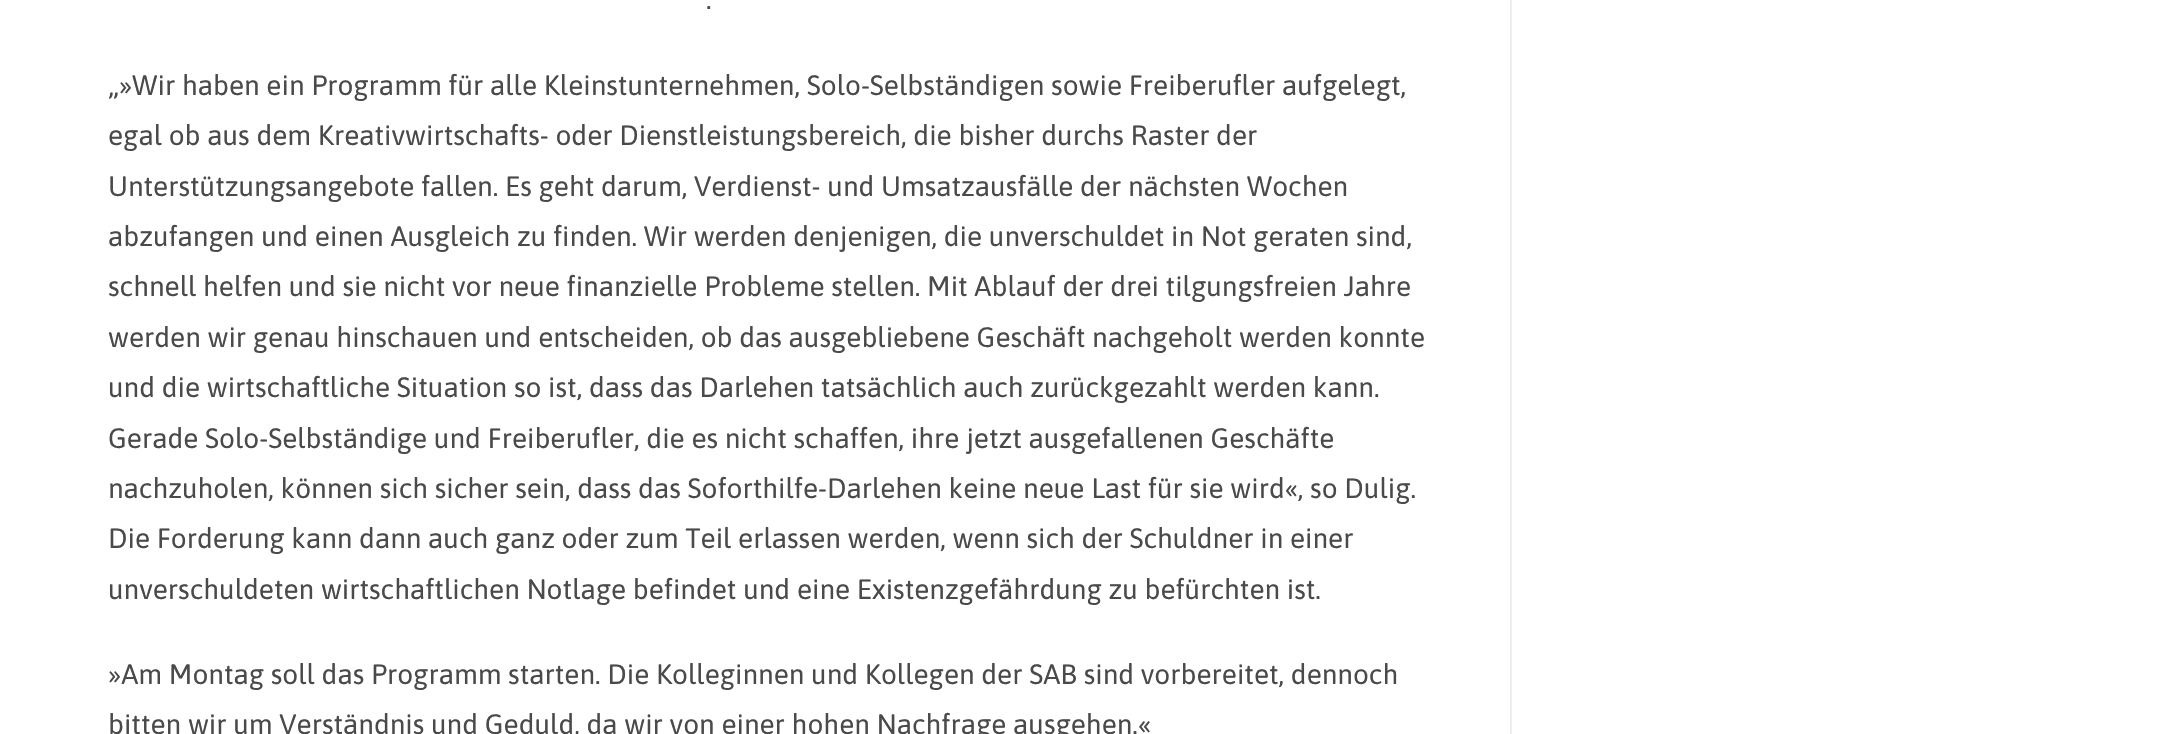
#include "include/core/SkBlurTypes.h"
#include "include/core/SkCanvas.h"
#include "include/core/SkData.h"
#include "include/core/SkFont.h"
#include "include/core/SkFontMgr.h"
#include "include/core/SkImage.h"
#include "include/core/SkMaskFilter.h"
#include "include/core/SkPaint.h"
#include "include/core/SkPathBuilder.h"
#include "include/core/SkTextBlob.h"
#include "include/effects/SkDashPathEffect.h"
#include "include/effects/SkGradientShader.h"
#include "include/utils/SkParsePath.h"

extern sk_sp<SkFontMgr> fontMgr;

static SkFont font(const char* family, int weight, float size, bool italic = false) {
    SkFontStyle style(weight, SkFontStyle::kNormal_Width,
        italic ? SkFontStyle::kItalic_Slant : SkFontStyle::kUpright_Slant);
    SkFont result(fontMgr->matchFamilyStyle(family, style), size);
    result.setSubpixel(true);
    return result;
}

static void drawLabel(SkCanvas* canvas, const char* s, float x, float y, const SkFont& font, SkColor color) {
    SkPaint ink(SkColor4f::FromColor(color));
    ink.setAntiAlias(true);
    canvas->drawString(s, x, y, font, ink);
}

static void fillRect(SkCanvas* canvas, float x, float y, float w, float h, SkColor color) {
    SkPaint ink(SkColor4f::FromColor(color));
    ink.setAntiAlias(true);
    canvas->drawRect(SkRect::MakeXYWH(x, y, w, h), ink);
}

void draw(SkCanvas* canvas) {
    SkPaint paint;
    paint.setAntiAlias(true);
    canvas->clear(0xFFFFFFFF);
    fillRect(canvas, 1510, 0, 2, 734, 0xFFEEEEEE);
    SkFont font1 = font("Asap", 400, 28);
    drawLabel(canvas, ".", 706, 9, font1, 0xFF4A4A4A);
    drawLabel(canvas, "„»Wir haben ein Programm für alle Kleinstunternehmen, Solo-Selbständigen sowie Freiberufler aufgelegt,", 108, 95, font1, 0xFF4A4A4A);
    drawLabel(canvas, "egal ob aus dem Kreativwirtschafts- oder Dienstleistungsbereich, die bisher durchs Raster der", 108, 145, font1, 0xFF4A4A4A);
    drawLabel(canvas, "Unterstützungsangebote fallen. Es geht darum, Verdienst- und Umsatzausfälle der nächsten Wochen", 108, 196, font1, 0xFF4A4A4A);
    drawLabel(canvas, "abzufangen und einen Ausgleich zu finden. Wir werden denjenigen, die unverschuldet in Not geraten sind,", 108, 246, font1, 0xFF4A4A4A);
    drawLabel(canvas, "schnell helfen und sie nicht vor neue finanzielle Probleme stellen. Mit Ablauf der drei tilgungsfreien Jahre", 108, 296, font1, 0xFF4A4A4A);
    drawLabel(canvas, "werden wir genau hinschauen und entscheiden, ob das ausgebliebene Geschäft nachgeholt werden konnte", 108, 347, font1, 0xFF4A4A4A);
    drawLabel(canvas, "und die wirtschaftliche Situation so ist, dass das Darlehen tatsächlich auch zurückgezahlt werden kann.", 108, 397, font1, 0xFF4A4A4A);
    drawLabel(canvas, "Gerade Solo-Selbständige und Freiberufler, die es nicht schaffen, ihre jetzt ausgefallenen Geschäfte", 108, 448, font1, 0xFF4A4A4A);
    drawLabel(canvas, "nachzuholen, können sich sicher sein, dass das Soforthilfe-Darlehen keine neue Last für sie wird«, so Dulig.", 108, 498, font1, 0xFF4A4A4A);
    drawLabel(canvas, "Die Forderung kann dann auch ganz oder zum Teil erlassen werden, wenn sich der Schuldner in einer", 108, 548, font1, 0xFF4A4A4A);
    drawLabel(canvas, "unverschuldeten wirtschaftlichen Notlage befindet und eine Existenzgefährdung zu befürchten ist.", 108, 599, font1, 0xFF4A4A4A);
    drawLabel(canvas, "»Am Montag soll das Programm starten. Die Kolleginnen und Kollegen der SAB sind vorbereitet, dennoch", 108, 684, font1, 0xFF4A4A4A);
    drawLabel(canvas, "bitten wir um Verständnis und Geduld, da wir von einer hohen Nachfrage ausgehen.«", 108, 734, font1, 0xFF4A4A4A);
}
